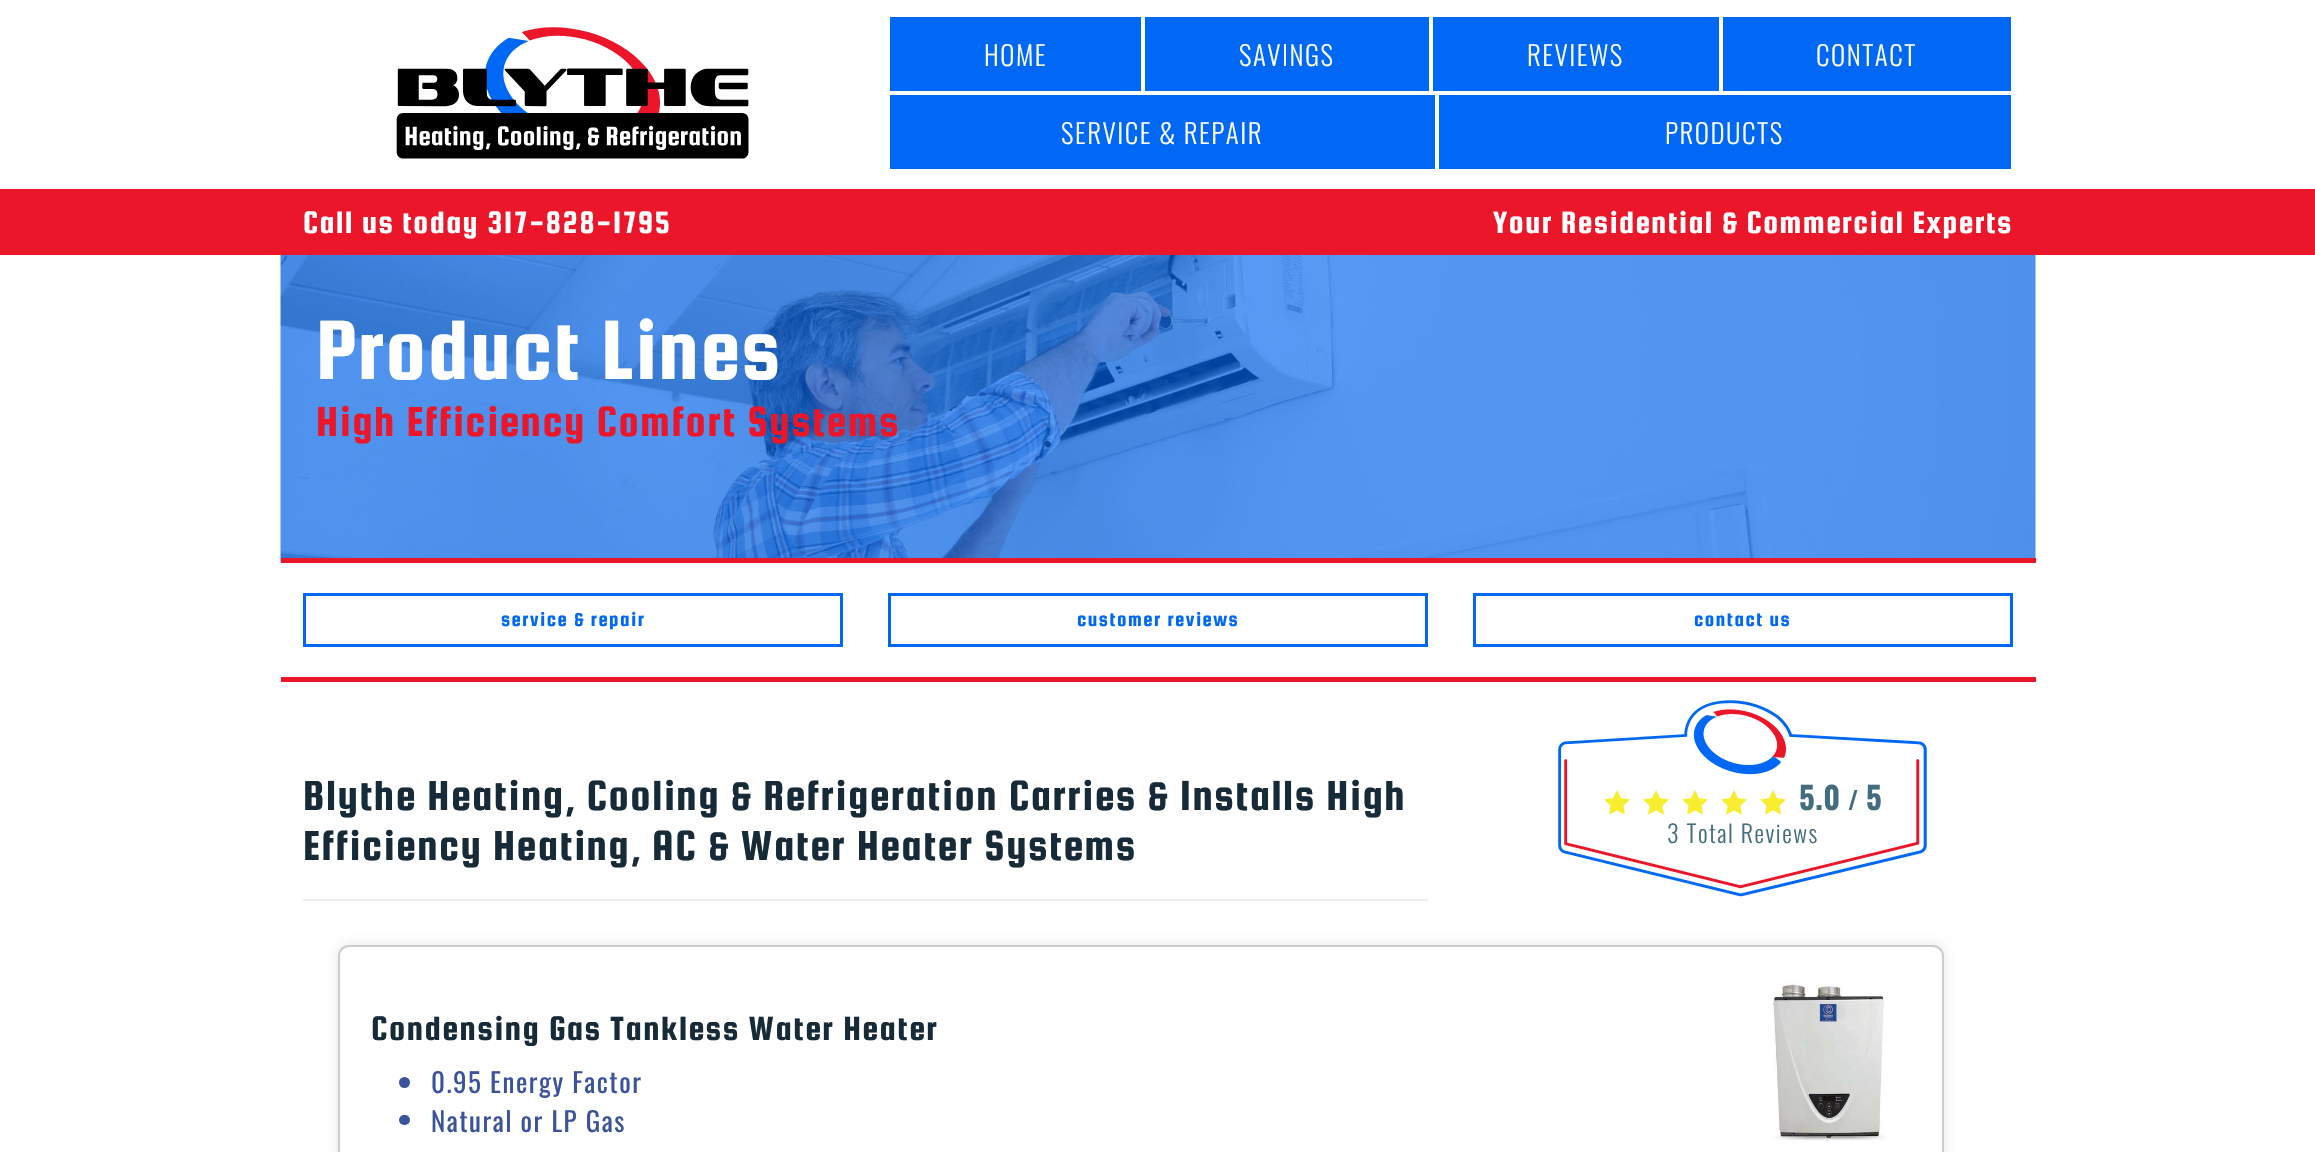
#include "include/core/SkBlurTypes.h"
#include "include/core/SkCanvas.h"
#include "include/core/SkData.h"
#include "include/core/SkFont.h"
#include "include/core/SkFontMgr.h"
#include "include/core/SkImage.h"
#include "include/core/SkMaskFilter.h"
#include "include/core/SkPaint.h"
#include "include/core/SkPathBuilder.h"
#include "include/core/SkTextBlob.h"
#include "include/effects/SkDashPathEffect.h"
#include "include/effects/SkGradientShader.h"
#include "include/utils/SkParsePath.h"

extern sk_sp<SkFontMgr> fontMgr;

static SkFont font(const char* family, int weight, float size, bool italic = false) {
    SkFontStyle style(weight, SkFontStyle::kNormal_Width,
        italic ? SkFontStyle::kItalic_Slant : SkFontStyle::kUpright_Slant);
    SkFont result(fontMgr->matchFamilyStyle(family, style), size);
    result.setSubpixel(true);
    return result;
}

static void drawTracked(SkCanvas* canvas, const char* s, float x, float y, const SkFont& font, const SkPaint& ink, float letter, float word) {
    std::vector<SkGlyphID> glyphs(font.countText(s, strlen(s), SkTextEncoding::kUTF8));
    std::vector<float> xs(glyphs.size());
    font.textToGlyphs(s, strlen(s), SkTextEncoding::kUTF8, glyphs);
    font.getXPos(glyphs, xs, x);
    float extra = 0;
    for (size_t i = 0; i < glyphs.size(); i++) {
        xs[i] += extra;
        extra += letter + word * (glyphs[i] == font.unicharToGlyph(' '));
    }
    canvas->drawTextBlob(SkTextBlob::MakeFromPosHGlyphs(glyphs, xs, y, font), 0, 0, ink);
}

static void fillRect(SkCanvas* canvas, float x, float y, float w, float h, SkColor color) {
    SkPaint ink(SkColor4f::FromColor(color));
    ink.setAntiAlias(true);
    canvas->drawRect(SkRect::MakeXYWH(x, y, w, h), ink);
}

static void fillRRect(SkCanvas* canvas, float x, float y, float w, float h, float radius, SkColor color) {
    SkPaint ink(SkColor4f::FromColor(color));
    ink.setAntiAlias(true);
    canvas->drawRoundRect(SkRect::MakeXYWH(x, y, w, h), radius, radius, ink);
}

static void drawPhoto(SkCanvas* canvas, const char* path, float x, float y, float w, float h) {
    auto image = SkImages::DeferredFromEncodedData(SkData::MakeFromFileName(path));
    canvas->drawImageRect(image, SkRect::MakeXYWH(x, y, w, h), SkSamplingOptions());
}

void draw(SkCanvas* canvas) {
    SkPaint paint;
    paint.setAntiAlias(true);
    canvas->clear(0xFFFFFFFF);
    drawPhoto(canvas, "assets/img1.png", 396, 27, 353, 132);
    fillRect(canvas, 890, 17, 251, 74, 0xFF0068F4);
    SkFont font1 = font("Oswald", 300, 27);
    paint.setColor(0xFFFFFFFF);
    drawTracked(canvas, "HOME", 984, 66, font1, paint, 1.5f, 0);
    fillRect(canvas, 1145, 17, 284, 74, 0xFF0068F4);
    drawTracked(canvas, "SAVINGS", 1239, 66, font1, paint, 1.5f, 0);
    fillRect(canvas, 1433, 17, 286, 74, 0xFF0068F4);
    drawTracked(canvas, "REVIEWS", 1527, 66, font1, paint, 1.5f, 0);
    fillRect(canvas, 1723, 17, 288, 74, 0xFF0068F4);
    drawTracked(canvas, "CONTACT", 1816, 66, font1, paint, 1.5f, 0);
    fillRect(canvas, 890, 95, 545, 74, 0xFF0068F4);
    drawTracked(canvas, "SERVICE & REPAIR", 1061, 144, font1, paint, 1.5f, 0);
    fillRect(canvas, 1439, 95, 572, 74, 0xFF0068F4);
    drawTracked(canvas, "PRODUCTS", 1665, 144, font1, paint, 1.5f, 0);
    fillRect(canvas, 0, 189, 2315, 66, 0xFFEB162A);
    SkFont font2 = font("Squada One", 400, 33);
    drawTracked(canvas, "Call us today 317-828-1795", 303, 233, font2, paint, 1.5f, 0);
    drawTracked(canvas, "Your Residential & Commercial Experts", 1493, 233, font2, paint, 1.5f, 0);
    drawPhoto(canvas, "assets/img2.png", 280, 255, 1756, 308);
    fillRect(canvas, 281, 558, 1755, 5, 0xFFEB162A);
    SkFont font3 = font("Squada One", 400, 90);
    drawTracked(canvas, "Product Lines", 316, 379, font3, paint, 1.5f, 0);
    SkFont font4 = font("Squada One", 400, 45);
    paint.setColor(0xFFEB162A);
    drawTracked(canvas, "High Efficiency Comfort Systems", 316, 436, font4, paint, 1.5f, 0);
    paint.setStroke(true);
    paint.setStrokeWidth(3);
    paint.setColor(0xFF0068F4);
    canvas->drawRect(SkRect::MakeXYWH(304.5f, 594.5f, 537, 51), paint);
    SkFont font5 = font("Squada One", 400, 21);
    paint.setStroke(false);
    drawTracked(canvas, "service & repair", 501, 626, font5, paint, 1.5f, 0);
    paint.setStroke(true);
    canvas->drawRect(SkRect::MakeXYWH(889.5f, 594.5f, 537, 51), paint);
    paint.setStroke(false);
    drawTracked(canvas, "customer reviews", 1077, 626, font5, paint, 1.5f, 0);
    paint.setStroke(true);
    canvas->drawRect(SkRect::MakeXYWH(1474.5f, 594.5f, 537, 51), paint);
    paint.setStroke(false);
    drawTracked(canvas, "contact us", 1694, 626, font5, paint, 1.5f, 0);
    fillRect(canvas, 281, 677, 1755, 5, 0xFFEB162A);
    fillRect(canvas, 303, 899, 1125, 2, 0xFFEEEEEE);
    paint.setColor(0xFF162A38);
    drawTracked(canvas, "Blythe Heating, Cooling & Refrigeration Carries & Installs High", 303, 810, font4, paint, 1.5f, 0);
    drawTracked(canvas, "Efficiency Heating, AC & Water Heater Systems", 303, 860, font4, paint, 1.5f, 0);
    drawPhoto(canvas, "assets/img3.png", 1558, 700, 369, 197);
    drawPhoto(canvas, "assets/img4.png", 1604, 790, 26, 25);
    drawPhoto(canvas, "assets/img4.png", 1643, 790, 26, 25);
    drawPhoto(canvas, "assets/img4.png", 1682, 790, 26, 25);
    drawPhoto(canvas, "assets/img4.png", 1721, 790, 26, 25);
    drawPhoto(canvas, "assets/img4.png", 1760, 790, 26, 25);
    SkFont font6 = font("Oswald", 700, 30);
    paint.setColor(0xFF436D7C);
    drawTracked(canvas, "5.0", 1799, 810, font6, paint, 1.5f, 0);
    SkFont font7 = font("Oswald", 700, 24);
    drawTracked(canvas, "/", 1848, 810, font7, paint, 1.5f, 0);
    drawTracked(canvas, "5", 1866, 810, font6, paint, 1.5f, 0);
    SkFont font8 = font("Oswald", 300, 24);
    drawTracked(canvas, "3 Total Reviews", 1667, 843, font8, paint, 1.5f, 0);
    paint.setColor(0x1A000000);
    paint.setMaskFilter(SkMaskFilter::MakeBlur(kNormal_SkBlurStyle, 6));
    canvas->drawRoundRect(SkRect::MakeXYWH(338, 945, 1606, 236), 11, 11, paint);
    paint.setMaskFilter(nullptr);
    paint.setColor(0xFFFFFFFF);
    canvas->drawRoundRect(SkRect::MakeXYWH(339, 946, 1604, 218), 10, 10, paint);
    paint.setStroke(true);
    paint.setStrokeWidth(2);
    paint.setColor(0xFFCCCCCC);
    canvas->drawRoundRect(SkRect::MakeXYWH(339, 946, 1604, 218), 10, 10, paint);
    SkFont font9 = font("Squada One", 400, 36);
    paint.setStroke(false);
    paint.setColor(0xFF162A38);
    drawTracked(canvas, "Condensing Gas Tankless Water Heater", 371, 1040, font9, paint, 1.5f, 0);
    drawPhoto(canvas, "assets/img5.png", 1772, 982, 114, 159);
    paint.setColor(0xFF3A539B);
    canvas->drawCircle(404.5f, 1082.5f, 5.5f, paint);
    SkFont font10 = font("Oswald", 400, 27);
    drawTracked(canvas, "0.95 Energy Factor", 431, 1093, font10, paint, 1.5f, 0);
    fillRRect(canvas, 399, 1115, 11, 10, 5, 0xFF3A539B);
    drawTracked(canvas, "Natural or LP Gas", 431, 1132, font10, paint, 1.5f, 0);
}
